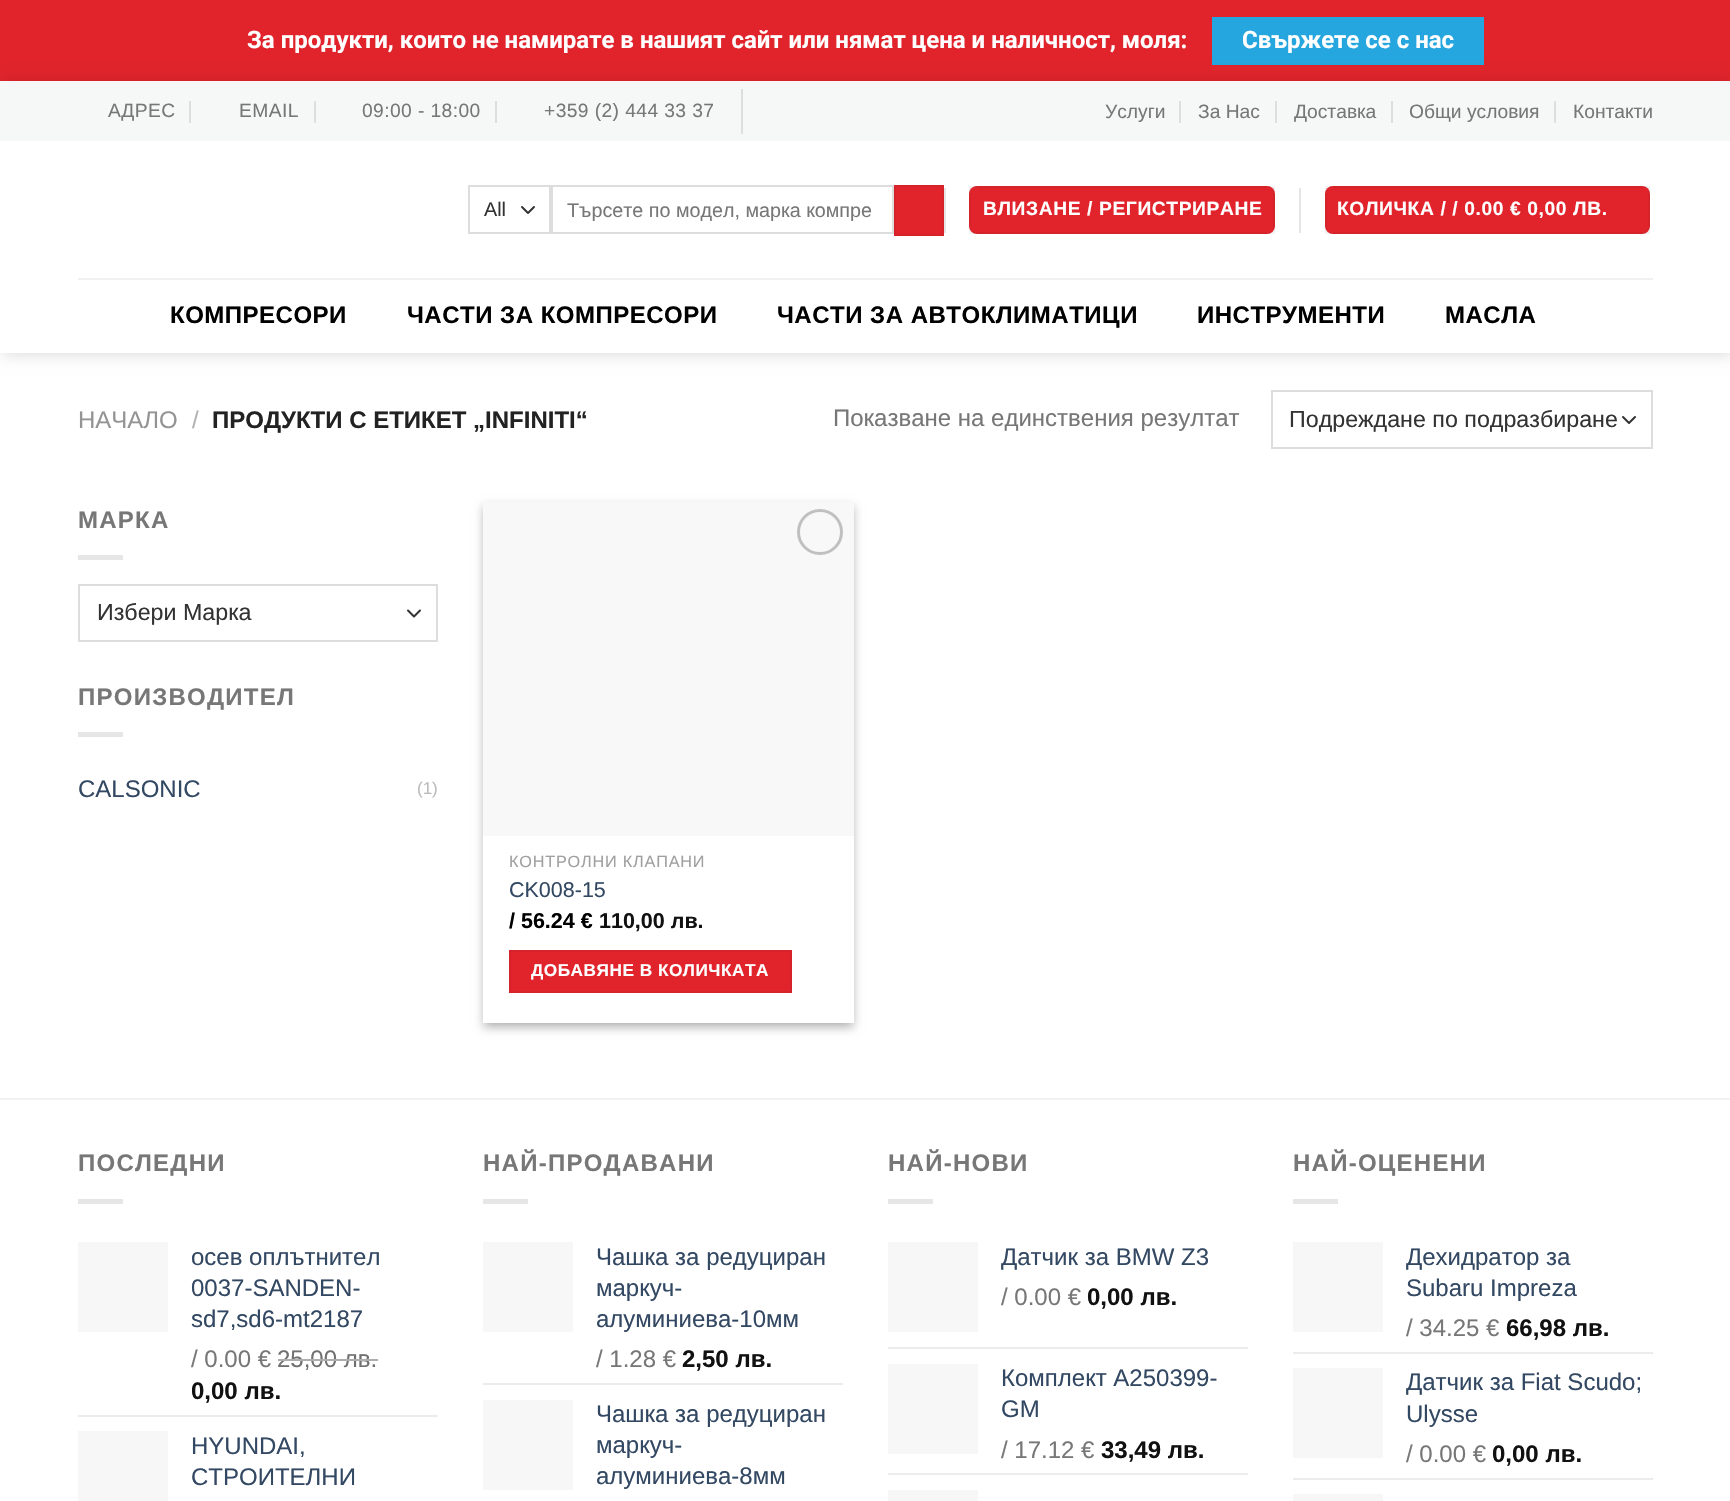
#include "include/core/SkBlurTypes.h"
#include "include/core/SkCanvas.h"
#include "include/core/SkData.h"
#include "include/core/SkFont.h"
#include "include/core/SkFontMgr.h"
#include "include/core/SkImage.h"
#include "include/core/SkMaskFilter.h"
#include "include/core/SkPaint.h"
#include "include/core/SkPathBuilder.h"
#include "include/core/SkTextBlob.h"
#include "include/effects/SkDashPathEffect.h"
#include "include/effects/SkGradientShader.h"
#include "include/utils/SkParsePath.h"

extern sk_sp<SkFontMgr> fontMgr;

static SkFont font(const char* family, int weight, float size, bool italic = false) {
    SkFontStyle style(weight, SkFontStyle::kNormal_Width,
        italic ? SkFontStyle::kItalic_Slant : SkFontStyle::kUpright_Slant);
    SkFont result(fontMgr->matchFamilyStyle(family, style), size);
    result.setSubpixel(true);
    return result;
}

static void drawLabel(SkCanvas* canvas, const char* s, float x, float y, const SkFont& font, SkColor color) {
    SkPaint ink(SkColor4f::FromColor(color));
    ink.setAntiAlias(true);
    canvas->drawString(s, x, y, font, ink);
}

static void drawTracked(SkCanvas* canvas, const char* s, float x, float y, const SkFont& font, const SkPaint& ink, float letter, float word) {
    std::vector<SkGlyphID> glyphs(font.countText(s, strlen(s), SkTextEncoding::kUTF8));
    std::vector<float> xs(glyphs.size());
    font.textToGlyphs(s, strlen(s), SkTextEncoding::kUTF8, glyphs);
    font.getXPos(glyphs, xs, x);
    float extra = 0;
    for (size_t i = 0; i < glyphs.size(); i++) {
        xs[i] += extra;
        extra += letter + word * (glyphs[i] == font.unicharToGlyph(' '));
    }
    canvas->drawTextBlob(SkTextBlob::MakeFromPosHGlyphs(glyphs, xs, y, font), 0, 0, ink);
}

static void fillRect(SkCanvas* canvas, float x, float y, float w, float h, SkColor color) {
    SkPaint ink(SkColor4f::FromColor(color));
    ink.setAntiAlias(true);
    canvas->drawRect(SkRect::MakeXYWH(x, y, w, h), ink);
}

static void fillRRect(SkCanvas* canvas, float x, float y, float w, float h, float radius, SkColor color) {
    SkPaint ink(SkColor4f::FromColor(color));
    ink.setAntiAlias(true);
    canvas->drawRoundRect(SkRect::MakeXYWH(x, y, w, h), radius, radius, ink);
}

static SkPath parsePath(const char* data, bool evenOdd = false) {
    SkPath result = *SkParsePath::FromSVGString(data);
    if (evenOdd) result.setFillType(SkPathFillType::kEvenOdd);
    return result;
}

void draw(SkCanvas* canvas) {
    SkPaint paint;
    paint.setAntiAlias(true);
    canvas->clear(0xFFFFFFFF);
    fillRect(canvas, 0, 0, 1730, 81, 0xFFE1242C);
    SkFont font1 = font("Roboto", 700, 24);
    drawLabel(canvas, "За продукти, които не намирате в нашият сайт или нямат цена и наличност, моля:", 247, 48, font1, 0xFFFFFFFF);
    fillRect(canvas, 1212, 17, 272, 48, 0xFF26A6DE);
    drawLabel(canvas, "Свържете се с нас", 1242, 48, font1, 0xFFFFFFFF);
    canvas->save();
    canvas->clipPath(parsePath("M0 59H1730V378H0ZM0 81H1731V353H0Z", true), true);
    paint.setColor(0x26000000);
    paint.setMaskFilter(SkMaskFilter::MakeBlur(kNormal_SkBlurStyle, 7.5f));
    canvas->drawRect(SkRect::MakeXYWH(2, 83, 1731, 271), paint);
    paint.setMaskFilter(nullptr);
    canvas->restore();
    fillRect(canvas, 0, 81, 1730, 60, 0xFFF6F7F7);
    SkFont font2 = font("Liberation Sans", 400, 19.25f);
    paint.setColor(0xFF777777);
    drawTracked(canvas, "АДРЕС", 108, 117, font2, paint, 0.4f, 0);
    fillRect(canvas, 189, 101, 2, 22, 0xFFDDDEDE);
    drawTracked(canvas, "EMAIL", 239, 117, font2, paint, 0.4f, 0);
    fillRect(canvas, 314, 101, 2, 22, 0xFFDDDEDE);
    drawTracked(canvas, "09:00 - 18:00", 362, 117, font2, paint, 0.4f, 0);
    fillRect(canvas, 495, 101, 2, 22, 0xFFDDDEDE);
    drawTracked(canvas, "+359 (2) 444 33 37", 544, 117, font2, paint, 0.4f, 0);
    fillRect(canvas, 741, 89, 2, 45, 0xFFDDDEDE);
    drawLabel(canvas, "Услуги", 1105, 118, font2, 0xFF777777);
    fillRect(canvas, 1179, 101, 2, 22, 0xFFDDDEDE);
    drawLabel(canvas, "За Нас", 1198, 118, font2, 0xFF777777);
    fillRect(canvas, 1275, 101, 2, 22, 0xFFDDDEDE);
    drawLabel(canvas, "Доставка", 1294, 118, font2, 0xFF777777);
    fillRect(canvas, 1391, 101, 2, 22, 0xFFDDDEDE);
    drawLabel(canvas, "Общи условия", 1409, 118, font2, 0xFF777777);
    fillRect(canvas, 1554, 101, 2, 22, 0xFFDDDEDE);
    drawLabel(canvas, "Контакти", 1573, 118, font2, 0xFF777777);
    paint.setStroke(true);
    paint.setStrokeWidth(2);
    paint.setStrokeCap(SkPaint::kRound_Cap);
    paint.setStrokeJoin(SkPaint::kRound_Join);
    paint.setColor(0xFF333333);
    canvas->drawPath(parsePath("M522 207L528 213L534 207"), paint);
    paint.setStrokeCap(SkPaint::kButt_Cap);
    paint.setStrokeJoin(SkPaint::kMiter_Join);
    paint.setColor(0xFFDDDDDD);
    canvas->drawRect(SkRect::MakeXYWH(469, 186, 81, 47), paint);
    SkFont font3 = font("Liberation Sans", 400, 19.75f);
    drawLabel(canvas, "All", 484, 216, font3, 0xFF333333);
    canvas->drawRect(SkRect::MakeXYWH(552, 186, 341, 47), paint);
    canvas->save();
    canvas->clipRect(SkRect::MakeXYWH(567, 198, 305, 23));
    drawLabel(canvas, "Търсете по модел, марка компре", 567, 217, font3, 0xFF777777);
    canvas->restore();
    paint.setStroke(false);
    paint.setColor(0xFFE1242C);
    canvas->drawRect(SkRect::MakeXYWH(895, 186, 48, 49), paint);
    paint.setStroke(true);
    paint.setColor(0xFFD6222A);
    canvas->drawRect(SkRect::MakeXYWH(895, 186, 48, 49), paint);
    fillRect(canvas, 944, 188, 2, 45, 0xFFE6E6E6);
    fillRRect(canvas, 969, 186, 306, 48, 8, 0xFFE1242C);
    paint.setColor(0x0D000000);
    canvas->drawRect(SkRect::MakeXYWH(970, 187, 304, 46), paint);
    SkFont font4 = font("Liberation Sans", 700, 19.25f);
    paint.setStroke(false);
    paint.setColor(0xFFFFFFFF);
    drawTracked(canvas, "ВЛИЗАНЕ / РЕГИСТРИРАНЕ", 983, 215, font4, paint, 0.6f, 0);
    fillRect(canvas, 1299, 188, 2, 45, 0xFFE6E6E6);
    fillRRect(canvas, 1325, 186, 325, 48, 8, 0xFFE1242C);
    paint.setStroke(true);
    paint.setColor(0x0D000000);
    canvas->drawRect(SkRect::MakeXYWH(1326, 187, 323, 46), paint);
    paint.setStroke(false);
    paint.setColor(0xFFFFFFFF);
    drawTracked(canvas, "КОЛИЧКА / / 0.00 € 0,00 ЛВ.", 1337, 215, font4, paint, 0.6f, 0);
    fillRect(canvas, 78, 278, 1575, 2, 0xFFF1F1F1);
    SkFont font5 = font("Liberation Sans", 700, 24);
    paint.setColor(0xFF000000);
    drawTracked(canvas, "КОМПРЕСОРИ", 170, 323, font5, paint, 0.5f, 0);
    drawTracked(canvas, "ЧАСТИ ЗА КОМПРЕСОРИ", 407, 323, font5, paint, 0.5f, 0);
    drawTracked(canvas, "ЧАСТИ ЗА АВТОКЛИМАТИЦИ", 777, 323, font5, paint, 0.5f, 0);
    drawTracked(canvas, "ИНСТРУМЕНТИ", 1197, 323, font5, paint, 0.5f, 0);
    drawTracked(canvas, "МАСЛА", 1445, 323, font5, paint, 0.5f, 0);
    fillRect(canvas, 0, 352, 1730, 1, 0xE6FFFFFF);
    SkFont font6 = font("Liberation Sans", 400, 24);
    drawLabel(canvas, "НАЧАЛО", 78, 428, font6, 0xFF949494);
    drawLabel(canvas, "/", 192, 428, font6, 0xFFB2B2B2);
    drawLabel(canvas, "ПРОДУКТИ С ЕТИКЕТ „INFINITI“", 212, 428, font5, 0xFF222222);
    drawLabel(canvas, "Показване на единствения резултат", 833, 426, font6, 0xFF777777);
    paint.setStroke(true);
    paint.setStrokeCap(SkPaint::kRound_Cap);
    paint.setStrokeJoin(SkPaint::kRound_Join);
    paint.setColor(0xFF333333);
    canvas->drawPath(parsePath("M1623 417L1629 423L1635 417"), paint);
    paint.setStrokeCap(SkPaint::kButt_Cap);
    paint.setStrokeJoin(SkPaint::kMiter_Join);
    paint.setColor(0xFFDDDDDD);
    canvas->drawRect(SkRect::MakeXYWH(1272, 391, 380, 57), paint);
    SkFont font7 = font("Liberation Sans", 400, 23.25f);
    drawLabel(canvas, "Подреждане по подразбиране", 1289, 427, font7, 0xFF333333);
    paint.setStroke(false);
    paint.setColor(0xFF777777);
    drawTracked(canvas, "МАРКА", 78, 528, font5, paint, 1.25f, 0);
    fillRect(canvas, 78, 555, 45, 5, 0xFFE6E6E6);
    paint.setStroke(true);
    paint.setStrokeCap(SkPaint::kRound_Cap);
    paint.setStrokeJoin(SkPaint::kRound_Join);
    paint.setColor(0xFF333333);
    canvas->drawPath(parsePath("M408 610.5L414 616.5L420 610.5"), paint);
    paint.setStrokeCap(SkPaint::kButt_Cap);
    paint.setStrokeJoin(SkPaint::kMiter_Join);
    paint.setColor(0xFFDDDDDD);
    canvas->drawRect(SkRect::MakeXYWH(79, 585, 358, 56), paint);
    drawLabel(canvas, "Избери Марка", 97, 620, font7, 0xFF333333);
    paint.setStroke(false);
    paint.setColor(0xFF777777);
    drawTracked(canvas, "ПРОИЗВОДИТЕЛ", 78, 705, font5, paint, 1.25f, 0);
    fillRect(canvas, 78, 732, 45, 5, 0xFFE6E6E6);
    drawLabel(canvas, "CALSONIC", 78, 797, font6, 0xFF334862);
    SkFont font8 = font("Liberation Sans", 400, 17);
    drawLabel(canvas, "(1)", 417, 794, font8, 0xFFBBBBBB);
    paint.setColor(0x3B000000);
    paint.setMaskFilter(SkMaskFilter::MakeBlur(kNormal_SkBlurStyle, 4.5f));
    canvas->drawRect(SkRect::MakeXYWH(483, 506, 371, 522), paint);
    paint.setMaskFilter(nullptr);
    paint.setColor(0x29000000);
    paint.setMaskFilter(SkMaskFilter::MakeBlur(kNormal_SkBlurStyle, 4.5f));
    canvas->drawRect(SkRect::MakeXYWH(489, 512, 359, 510), paint);
    paint.setMaskFilter(nullptr);
    fillRect(canvas, 483, 836, 371, 187, 0xFFFFFFFF);
    fillRect(canvas, 483, 502, 371, 334, 0xFFF8F8F8);
    paint.setStroke(true);
    paint.setStrokeWidth(3);
    paint.setColor(0xFFC0C0C0);
    canvas->drawCircle(820, 532, 21.5f, paint);
    SkFont font9 = font("Liberation Sans", 400, 16.25f);
    paint.setStroke(false);
    paint.setColor(0xFFA0A0A0);
    drawTracked(canvas, "КОНТРОЛНИ КЛАПАНИ", 509, 867, font9, paint, 0.8f, 0);
    SkFont font10 = font("Liberation Sans", 400, 21.5f);
    drawLabel(canvas, "CK008-15", 509, 897, font10, 0xFF334862);
    SkFont font11 = font("Liberation Sans", 700, 21.5f);
    drawLabel(canvas, "/ 56.24 €", 509, 928, font11, 0xFF000000);
    drawLabel(canvas, "110,00 лв.", 599, 928, font11, 0xFF111111);
    paint.setColor(0xFFE1242C);
    canvas->drawRect(SkRect::MakeXYWH(510, 951, 281, 41), paint);
    paint.setStroke(true);
    paint.setStrokeWidth(2);
    paint.setColor(0xFFD6222A);
    canvas->drawRect(SkRect::MakeXYWH(510, 951, 281, 41), paint);
    SkFont font12 = font("Liberation Sans", 700, 17.25f);
    paint.setStroke(false);
    paint.setColor(0xFFFFFFFF);
    drawTracked(canvas, "ДОБАВЯНЕ В КОЛИЧКАТА", 531, 976, font12, paint, 0.5f, 0);
    fillRect(canvas, 0, 1098, 1730, 2, 0xFFF2F2F2);
    paint.setColor(0xFF777777);
    drawTracked(canvas, "ПОСЛЕДНИ", 78, 1171, font5, paint, 1.25f, 0);
    fillRect(canvas, 78, 1199, 45, 5, 0xFFE6E6E6);
    fillRect(canvas, 78, 1242, 90, 90, 0xFFF7F7F7);
    drawLabel(canvas, "осев оплътнител", 191, 1265, font6, 0xFF334862);
    drawLabel(canvas, "0037-SANDEN-", 191, 1296, font6, 0xFF334862);
    drawLabel(canvas, "sd7,sd6-mt2187", 191, 1327, font6, 0xFF334862);
    drawLabel(canvas, "/ 0.00 €", 191, 1367, font6, 0xFF777777);
    drawLabel(canvas, "25,00 лв.", 277, 1367, font6, 0xFF707070);
    fillRect(canvas, 278, 1359, 100, 2, 0xFFADADAD);
    drawLabel(canvas, "0,00 лв.", 191, 1399, font5, 0xFF111111);
    fillRect(canvas, 78, 1415, 360, 2, 0xFFECECEC);
    fillRect(canvas, 78, 1431, 90, 70, 0xFFF7F7F7);
    drawLabel(canvas, "HYUNDAI,", 191, 1454, font6, 0xFF334862);
    drawLabel(canvas, "СТРОИТЕЛНИ", 191, 1485, font6, 0xFF334862);
    drawTracked(canvas, "НАЙ-ПРОДАВАНИ", 483, 1171, font5, paint, 1.25f, 0);
    fillRect(canvas, 483, 1199, 45, 5, 0xFFE6E6E6);
    fillRect(canvas, 483, 1242, 90, 90, 0xFFF7F7F7);
    drawLabel(canvas, "Чашка за редуциран", 596, 1265, font6, 0xFF334862);
    drawLabel(canvas, "маркуч-", 596, 1296, font6, 0xFF334862);
    drawLabel(canvas, "алуминиева-10мм", 596, 1327, font6, 0xFF334862);
    drawLabel(canvas, "/ 1.28 €", 596, 1367, font6, 0xFF777777);
    drawLabel(canvas, "2,50 лв.", 682, 1367, font5, 0xFF111111);
    fillRect(canvas, 483, 1383, 360, 2, 0xFFECECEC);
    fillRect(canvas, 483, 1400, 90, 90, 0xFFF7F7F7);
    drawLabel(canvas, "Чашка за редуциран", 596, 1422, font6, 0xFF334862);
    drawLabel(canvas, "маркуч-", 596, 1453, font6, 0xFF334862);
    drawLabel(canvas, "алуминиева-8мм", 596, 1484, font6, 0xFF334862);
    drawTracked(canvas, "НАЙ-НОВИ", 888, 1171, font5, paint, 1.25f, 0);
    fillRect(canvas, 888, 1199, 45, 5, 0xFFE6E6E6);
    fillRect(canvas, 888, 1242, 90, 90, 0xFFF7F7F7);
    canvas->save();
    canvas->clipRect(SkRect::MakeXYWH(1001, 1242, 247, 32));
    drawLabel(canvas, "Датчик за BMW Z3", 1001, 1265, font6, 0xFF334862);
    canvas->restore();
    drawLabel(canvas, "/ 0.00 €", 1001, 1305, font6, 0xFF777777);
    drawLabel(canvas, "0,00 лв.", 1087, 1305, font5, 0xFF111111);
    fillRect(canvas, 888, 1347, 360, 2, 0xFFECECEC);
    fillRect(canvas, 888, 1364, 90, 90, 0xFFF7F7F7);
    drawLabel(canvas, "Комплект A250399-", 1001, 1386, font6, 0xFF334862);
    drawLabel(canvas, "GM", 1001, 1417, font6, 0xFF334862);
    drawLabel(canvas, "/ 17.12 €", 1001, 1458, font6, 0xFF777777);
    drawLabel(canvas, "33,49 лв.", 1101, 1458, font5, 0xFF111111);
    fillRect(canvas, 888, 1473, 360, 2, 0xFFECECEC);
    fillRect(canvas, 888, 1490, 90, 11, 0xFFF7F7F7);
    drawTracked(canvas, "НАЙ-ОЦЕНЕНИ", 1293, 1171, font5, paint, 1.25f, 0);
    fillRect(canvas, 1293, 1199, 45, 5, 0xFFE6E6E6);
    fillRect(canvas, 1293, 1242, 90, 90, 0xFFF7F7F7);
    canvas->save();
    canvas->clipRect(SkRect::MakeXYWH(1406, 1242, 247, 63));
    drawLabel(canvas, "Дехидратор за", 1406, 1265, font6, 0xFF334862);
    canvas->restore();
    drawLabel(canvas, "Subaru Impreza", 1406, 1296, font6, 0xFF334862);
    drawLabel(canvas, "/ 34.25 €", 1406, 1336, font6, 0xFF777777);
    drawLabel(canvas, "66,98 лв.", 1506, 1336, font5, 0xFF111111);
    fillRect(canvas, 1293, 1352, 360, 2, 0xFFECECEC);
    fillRect(canvas, 1293, 1368, 90, 90, 0xFFF7F7F7);
    canvas->save();
    canvas->clipRect(SkRect::MakeXYWH(1406, 1368, 247, 63));
    drawLabel(canvas, "Датчик за Fiat Scudo;", 1406, 1390, font6, 0xFF334862);
    canvas->restore();
    drawLabel(canvas, "Ulysse", 1406, 1422, font6, 0xFF334862);
    drawLabel(canvas, "/ 0.00 €", 1406, 1462, font6, 0xFF777777);
    drawLabel(canvas, "0,00 лв.", 1492, 1462, font5, 0xFF111111);
    fillRect(canvas, 1293, 1478, 360, 2, 0xFFECECEC);
    fillRect(canvas, 1293, 1494, 90, 7, 0xFFF7F7F7);
}
